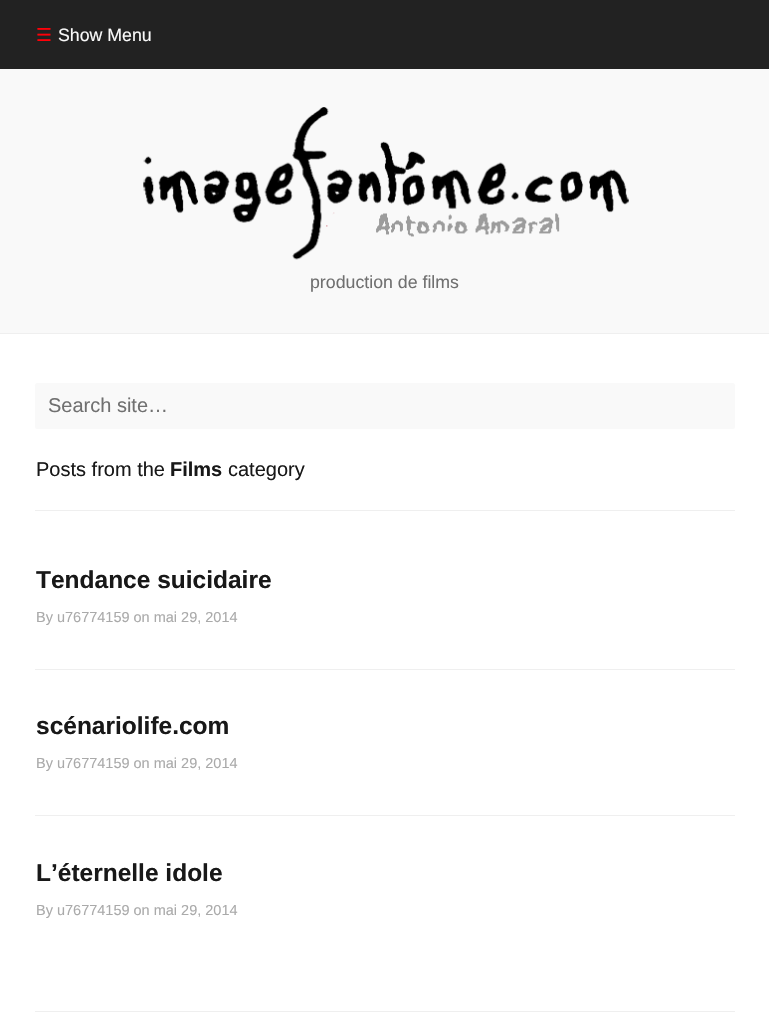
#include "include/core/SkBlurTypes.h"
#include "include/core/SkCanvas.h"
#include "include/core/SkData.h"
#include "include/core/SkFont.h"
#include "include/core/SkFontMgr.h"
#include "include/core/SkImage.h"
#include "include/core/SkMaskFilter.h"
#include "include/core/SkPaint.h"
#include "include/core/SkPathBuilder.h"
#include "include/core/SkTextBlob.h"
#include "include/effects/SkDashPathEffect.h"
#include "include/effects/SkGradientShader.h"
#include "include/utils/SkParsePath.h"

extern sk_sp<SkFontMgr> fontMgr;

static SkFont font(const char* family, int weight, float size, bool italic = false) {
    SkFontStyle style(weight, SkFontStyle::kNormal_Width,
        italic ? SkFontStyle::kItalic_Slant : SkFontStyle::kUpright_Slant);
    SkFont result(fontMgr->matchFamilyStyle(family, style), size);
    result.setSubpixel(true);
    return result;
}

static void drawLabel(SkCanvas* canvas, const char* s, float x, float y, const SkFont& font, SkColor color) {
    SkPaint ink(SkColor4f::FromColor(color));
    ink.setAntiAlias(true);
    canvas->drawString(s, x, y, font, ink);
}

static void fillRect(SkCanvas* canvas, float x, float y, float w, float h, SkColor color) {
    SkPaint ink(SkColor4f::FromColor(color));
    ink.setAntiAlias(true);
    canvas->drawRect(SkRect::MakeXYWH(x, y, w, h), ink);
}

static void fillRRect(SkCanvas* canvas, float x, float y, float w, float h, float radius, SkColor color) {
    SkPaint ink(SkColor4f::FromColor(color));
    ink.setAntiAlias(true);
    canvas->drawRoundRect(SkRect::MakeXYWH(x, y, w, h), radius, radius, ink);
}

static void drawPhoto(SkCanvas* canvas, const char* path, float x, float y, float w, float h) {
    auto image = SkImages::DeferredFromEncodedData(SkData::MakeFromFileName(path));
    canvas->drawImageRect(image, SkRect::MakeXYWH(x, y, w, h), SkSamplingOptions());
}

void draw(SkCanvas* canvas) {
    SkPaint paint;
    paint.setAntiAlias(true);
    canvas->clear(0xFFFFFFFF);
    fillRect(canvas, 0, 0, 769, 69, 0xFF222222);
    SkFont font1 = font("DejaVu Sans", 400, 17.75f);
    drawLabel(canvas, "☰", 36, 41, font1, 0xFFFF0008);
    SkFont font2 = font("Liberation Sans", 400, 17.75f);
    drawLabel(canvas, "Show Menu", 58, 41, font2, 0xFFF9F9F9);
    fillRect(canvas, 0, 69, 769, 264, 0xFFF9F9F9);
    fillRect(canvas, 0, 333, 769, 1, 0xFFEFEFEF);
    drawPhoto(canvas, "assets/img1.png", 143, 107, 486, 153);
    drawLabel(canvas, "production de films", 310, 288, font2, 0xFF707070);
    fillRRect(canvas, 35, 383, 700, 46, 2.5f, 0xFFF9F9F9);
    SkFont font3 = font("Liberation Sans", 400, 20);
    drawLabel(canvas, "Search site…", 48, 412, font3, 0xFF707070);
    fillRect(canvas, 35, 510, 700, 1, 0xFFEFEFEF);
    drawLabel(canvas, "Posts from the", 36, 476, font3, 0xFF181818);
    SkFont font4 = font("Liberation Sans", 700, 20);
    drawLabel(canvas, "Films", 170, 476, font4, 0xFF181818);
    drawLabel(canvas, "category", 228, 476, font3, 0xFF181818);
    fillRect(canvas, 35, 669, 700, 1, 0xFFEFEFEF);
    SkFont font5 = font("Liberation Sans", 700, 24.5f);
    drawLabel(canvas, "Tendance suicidaire", 36, 588, font5, 0xFF181818);
    SkFont font6 = font("Liberation Sans", 400, 14.5f);
    drawLabel(canvas, "By u76774159 on mai 29, 2014", 36, 622, font6, 0xFFAAAAAA);
    fillRect(canvas, 35, 815, 700, 1, 0xFFEFEFEF);
    drawLabel(canvas, "scénariolife.com", 36, 734, font5, 0xFF181818);
    drawLabel(canvas, "By u76774159 on mai 29, 2014", 36, 768, font6, 0xFFAAAAAA);
    drawLabel(canvas, "L’éternelle idole", 36, 881, font5, 0xFF181818);
    drawLabel(canvas, "By u76774159 on mai 29, 2014", 36, 915, font6, 0xFFAAAAAA);
    fillRect(canvas, 35, 1011, 700, 1, 0xFFEFEFEF);
}
